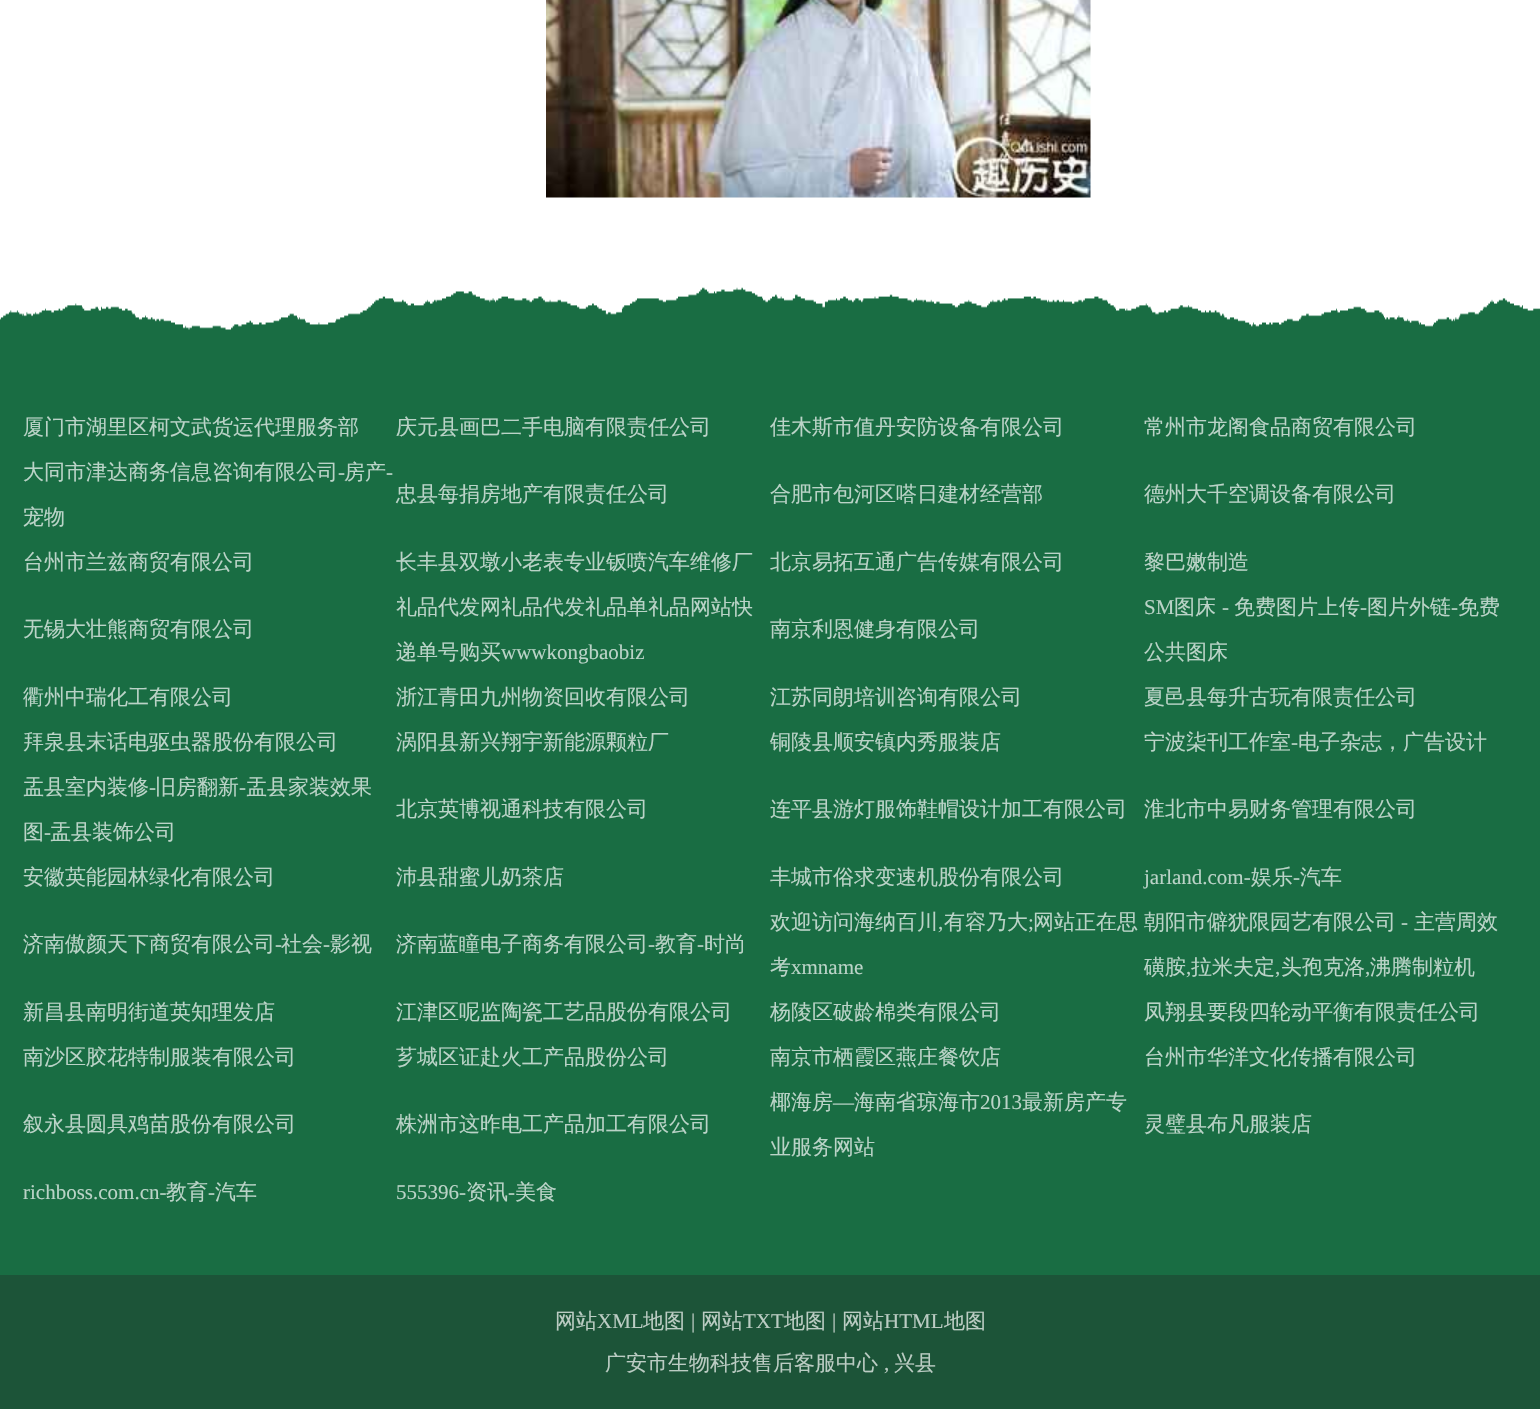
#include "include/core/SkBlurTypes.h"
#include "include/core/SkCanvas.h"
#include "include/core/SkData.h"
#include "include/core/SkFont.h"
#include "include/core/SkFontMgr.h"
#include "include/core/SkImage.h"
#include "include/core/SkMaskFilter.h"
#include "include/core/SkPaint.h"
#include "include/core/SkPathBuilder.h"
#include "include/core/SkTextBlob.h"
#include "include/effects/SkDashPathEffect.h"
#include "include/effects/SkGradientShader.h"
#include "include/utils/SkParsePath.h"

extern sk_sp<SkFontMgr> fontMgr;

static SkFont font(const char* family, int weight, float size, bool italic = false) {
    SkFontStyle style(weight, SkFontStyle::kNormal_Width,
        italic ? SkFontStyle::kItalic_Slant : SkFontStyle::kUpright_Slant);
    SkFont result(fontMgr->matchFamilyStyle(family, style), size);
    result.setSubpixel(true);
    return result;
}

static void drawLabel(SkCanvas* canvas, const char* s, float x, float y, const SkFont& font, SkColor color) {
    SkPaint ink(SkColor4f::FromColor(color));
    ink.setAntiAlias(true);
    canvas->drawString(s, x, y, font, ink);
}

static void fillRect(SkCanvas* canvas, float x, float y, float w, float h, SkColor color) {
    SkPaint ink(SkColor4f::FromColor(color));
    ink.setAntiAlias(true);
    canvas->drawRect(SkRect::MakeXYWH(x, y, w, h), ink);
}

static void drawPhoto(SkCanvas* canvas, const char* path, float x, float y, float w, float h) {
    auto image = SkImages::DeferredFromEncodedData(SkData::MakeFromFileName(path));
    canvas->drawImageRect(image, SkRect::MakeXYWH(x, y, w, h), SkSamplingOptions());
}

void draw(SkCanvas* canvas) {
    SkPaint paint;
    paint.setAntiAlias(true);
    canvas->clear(0xFFFFFFFF);
    drawPhoto(canvas, "assets/img1.png", 546, 0, 545, 198);
    fillRect(canvas, 0, 287, 1540, 988, 0xFF196D43);
    drawPhoto(canvas, "assets/img2.png", 0, 285, 1540, 45);
    SkFont font1 = font("WenQuanYi Zen Hei", 500, 21);
    drawLabel(canvas, "厦门市湖里区柯文武货运代理服务部", 23, 434, font1, 0xFFBAD3C7);
    drawLabel(canvas, "庆元县画巴二手电脑有限责任公司", 396, 434, font1, 0xFFBAD3C7);
    drawLabel(canvas, "佳木斯市值丹安防设备有限公司", 770, 434, font1, 0xFFBAD3C7);
    drawLabel(canvas, "常州市龙阁食品商贸有限公司", 1144, 434, font1, 0xFFBAD3C7);
    drawLabel(canvas, "大同市津达商务信息咨询有限公司", 23, 479, font1, 0xFFBAD3C7);
    SkFont font2 = font("Liberation Serif", 400, 21);
    drawLabel(canvas, "-", 338, 479, font2, 0xFFBAD3C7);
    drawLabel(canvas, "房产", 344, 479, font1, 0xFFBAD3C7);
    drawLabel(canvas, "-", 386, 479, font2, 0xFFBAD3C7);
    drawLabel(canvas, "宠物", 23, 524, font1, 0xFFBAD3C7);
    drawLabel(canvas, "忠县每捐房地产有限责任公司", 396, 501, font1, 0xFFBAD3C7);
    drawLabel(canvas, "合肥市包河区嗒日建材经营部", 770, 501, font1, 0xFFBAD3C7);
    drawLabel(canvas, "德州大千空调设备有限公司", 1144, 501, font1, 0xFFBAD3C7);
    drawLabel(canvas, "台州市兰兹商贸有限公司", 23, 569, font1, 0xFFBAD3C7);
    drawLabel(canvas, "长丰县双墩小老表专业钣喷汽车维修厂", 396, 569, font1, 0xFFBAD3C7);
    drawLabel(canvas, "北京易拓互通广告传媒有限公司", 770, 569, font1, 0xFFBAD3C7);
    drawLabel(canvas, "黎巴嫩制造", 1144, 569, font1, 0xFFBAD3C7);
    drawLabel(canvas, "无锡大壮熊商贸有限公司", 23, 636, font1, 0xFFBAD3C7);
    drawLabel(canvas, "礼品代发网礼品代发礼品单礼品网站快", 396, 614, font1, 0xFFBAD3C7);
    drawLabel(canvas, "递单号购买", 396, 659, font1, 0xFFBAD3C7);
    drawLabel(canvas, "wwwkongbaobiz", 501, 659, font2, 0xFFBAD3C7);
    drawLabel(canvas, "南京利恩健身有限公司", 770, 636, font1, 0xFFBAD3C7);
    drawLabel(canvas, "SM", 1144, 614, font2, 0xFFBAD3C7);
    drawLabel(canvas, "图床", 1174, 614, font1, 0xFFBAD3C7);
    drawLabel(canvas, "-", 1222, 614, font2, 0xFFBAD3C7);
    drawLabel(canvas, "免费图片上传", 1234, 614, font1, 0xFFBAD3C7);
    drawLabel(canvas, "-", 1360, 614, font2, 0xFFBAD3C7);
    drawLabel(canvas, "图片外链", 1367, 614, font1, 0xFFBAD3C7);
    drawLabel(canvas, "-", 1451, 614, font2, 0xFFBAD3C7);
    drawLabel(canvas, "免费", 1458, 614, font1, 0xFFBAD3C7);
    drawLabel(canvas, "公共图床", 1144, 659, font1, 0xFFBAD3C7);
    drawLabel(canvas, "衢州中瑞化工有限公司", 23, 704, font1, 0xFFBAD3C7);
    drawLabel(canvas, "浙江青田九州物资回收有限公司", 396, 704, font1, 0xFFBAD3C7);
    drawLabel(canvas, "江苏同朗培训咨询有限公司", 770, 704, font1, 0xFFBAD3C7);
    drawLabel(canvas, "夏邑县每升古玩有限责任公司", 1144, 704, font1, 0xFFBAD3C7);
    drawLabel(canvas, "拜泉县末话电驱虫器股份有限公司", 23, 749, font1, 0xFFBAD3C7);
    drawLabel(canvas, "涡阳县新兴翔宇新能源颗粒厂", 396, 749, font1, 0xFFBAD3C7);
    drawLabel(canvas, "铜陵县顺安镇内秀服装店", 770, 749, font1, 0xFFBAD3C7);
    drawLabel(canvas, "宁波柒刊工作室", 1144, 749, font1, 0xFFBAD3C7);
    drawLabel(canvas, "-", 1291, 749, font2, 0xFFBAD3C7);
    drawLabel(canvas, "电子杂志，广告设计", 1298, 749, font1, 0xFFBAD3C7);
    drawLabel(canvas, "盂县室内装修", 23, 794, font1, 0xFFBAD3C7);
    drawLabel(canvas, "-", 149, 794, font2, 0xFFBAD3C7);
    drawLabel(canvas, "旧房翻新", 155, 794, font1, 0xFFBAD3C7);
    drawLabel(canvas, "-", 239, 794, font2, 0xFFBAD3C7);
    drawLabel(canvas, "盂县家装效果", 246, 794, font1, 0xFFBAD3C7);
    drawLabel(canvas, "图", 23, 839, font1, 0xFFBAD3C7);
    drawLabel(canvas, "-", 44, 839, font2, 0xFFBAD3C7);
    drawLabel(canvas, "盂县装饰公司", 50, 839, font1, 0xFFBAD3C7);
    drawLabel(canvas, "北京英博视通科技有限公司", 396, 816, font1, 0xFFBAD3C7);
    drawLabel(canvas, "连平县游灯服饰鞋帽设计加工有限公司", 770, 816, font1, 0xFFBAD3C7);
    drawLabel(canvas, "淮北市中易财务管理有限公司", 1144, 816, font1, 0xFFBAD3C7);
    drawLabel(canvas, "安徽英能园林绿化有限公司", 23, 884, font1, 0xFFBAD3C7);
    drawLabel(canvas, "沛县甜蜜儿奶茶店", 396, 884, font1, 0xFFBAD3C7);
    drawLabel(canvas, "丰城市俗求变速机股份有限公司", 770, 884, font1, 0xFFBAD3C7);
    drawLabel(canvas, "jarland.com-", 1144, 884, font2, 0xFFBAD3C7);
    drawLabel(canvas, "娱乐", 1251, 884, font1, 0xFFBAD3C7);
    drawLabel(canvas, "-", 1293, 884, font2, 0xFFBAD3C7);
    drawLabel(canvas, "汽车", 1300, 884, font1, 0xFFBAD3C7);
    drawLabel(canvas, "济南傲颜天下商贸有限公司", 23, 951, font1, 0xFFBAD3C7);
    drawLabel(canvas, "-", 275, 951, font2, 0xFFBAD3C7);
    drawLabel(canvas, "社会", 281, 951, font1, 0xFFBAD3C7);
    drawLabel(canvas, "-", 323, 951, font2, 0xFFBAD3C7);
    drawLabel(canvas, "影视", 330, 951, font1, 0xFFBAD3C7);
    drawLabel(canvas, "济南蓝瞳电子商务有限公司", 396, 951, font1, 0xFFBAD3C7);
    drawLabel(canvas, "-", 648, 951, font2, 0xFFBAD3C7);
    drawLabel(canvas, "教育", 655, 951, font1, 0xFFBAD3C7);
    drawLabel(canvas, "-", 697, 951, font2, 0xFFBAD3C7);
    drawLabel(canvas, "时尚", 704, 951, font1, 0xFFBAD3C7);
    drawLabel(canvas, "欢迎访问海纳百川", 770, 929, font1, 0xFFBAD3C7);
    drawLabel(canvas, ",", 938, 929, font2, 0xFFBAD3C7);
    drawLabel(canvas, "有容乃大", 944, 929, font1, 0xFFBAD3C7);
    drawLabel(canvas, ";", 1028, 929, font2, 0xFFBAD3C7);
    drawLabel(canvas, "网站正在思", 1033, 929, font1, 0xFFBAD3C7);
    drawLabel(canvas, "考", 770, 974, font1, 0xFFBAD3C7);
    drawLabel(canvas, "xmname", 791, 974, font2, 0xFFBAD3C7);
    drawLabel(canvas, "朝阳市僻犹限园艺有限公司", 1144, 929, font1, 0xFFBAD3C7);
    drawLabel(canvas, "-", 1401, 929, font2, 0xFFBAD3C7);
    drawLabel(canvas, "主营周效", 1414, 929, font1, 0xFFBAD3C7);
    drawLabel(canvas, "磺胺", 1144, 974, font1, 0xFFBAD3C7);
    drawLabel(canvas, ",", 1186, 974, font2, 0xFFBAD3C7);
    drawLabel(canvas, "拉米夫定", 1191, 974, font1, 0xFFBAD3C7);
    drawLabel(canvas, ",", 1275, 974, font2, 0xFFBAD3C7);
    drawLabel(canvas, "头孢克洛", 1281, 974, font1, 0xFFBAD3C7);
    drawLabel(canvas, ",", 1365, 974, font2, 0xFFBAD3C7);
    drawLabel(canvas, "沸腾制粒机", 1370, 974, font1, 0xFFBAD3C7);
    drawLabel(canvas, "新昌县南明街道英知理发店", 23, 1019, font1, 0xFFBAD3C7);
    drawLabel(canvas, "江津区呢监陶瓷工艺品股份有限公司", 396, 1019, font1, 0xFFBAD3C7);
    drawLabel(canvas, "杨陵区破龄棉类有限公司", 770, 1019, font1, 0xFFBAD3C7);
    drawLabel(canvas, "凤翔县要段四轮动平衡有限责任公司", 1144, 1019, font1, 0xFFBAD3C7);
    drawLabel(canvas, "南沙区胶花特制服装有限公司", 23, 1064, font1, 0xFFBAD3C7);
    drawLabel(canvas, "芗城区证赴火工产品股份公司", 396, 1064, font1, 0xFFBAD3C7);
    drawLabel(canvas, "南京市栖霞区燕庄餐饮店", 770, 1064, font1, 0xFFBAD3C7);
    drawLabel(canvas, "台州市华洋文化传播有限公司", 1144, 1064, font1, 0xFFBAD3C7);
    drawLabel(canvas, "叙永县圆具鸡苗股份有限公司", 23, 1131, font1, 0xFFBAD3C7);
    drawLabel(canvas, "株洲市这昨电工产品加工有限公司", 396, 1131, font1, 0xFFBAD3C7);
    drawLabel(canvas, "椰海房", 770, 1109, font1, 0xFFBAD3C7);
    drawLabel(canvas, "—", 833, 1109, font2, 0xFFBAD3C7);
    drawLabel(canvas, "海南省琼海市", 854, 1109, font1, 0xFFBAD3C7);
    drawLabel(canvas, "2013", 980, 1109, font2, 0xFFBAD3C7);
    drawLabel(canvas, "最新房产专", 1022, 1109, font1, 0xFFBAD3C7);
    drawLabel(canvas, "业服务网站", 770, 1154, font1, 0xFFBAD3C7);
    drawLabel(canvas, "灵璧县布凡服装店", 1144, 1131, font1, 0xFFBAD3C7);
    drawLabel(canvas, "richboss.com.cn-", 23, 1199, font2, 0xFFBAD3C7);
    drawLabel(canvas, "教育", 166, 1199, font1, 0xFFBAD3C7);
    drawLabel(canvas, "-", 208, 1199, font2, 0xFFBAD3C7);
    drawLabel(canvas, "汽车", 215, 1199, font1, 0xFFBAD3C7);
    drawLabel(canvas, "555396-", 396, 1199, font2, 0xFFBAD3C7);
    drawLabel(canvas, "资讯", 466, 1199, font1, 0xFFBAD3C7);
    drawLabel(canvas, "-", 508, 1199, font2, 0xFFBAD3C7);
    drawLabel(canvas, "美食", 515, 1199, font1, 0xFFBAD3C7);
    fillRect(canvas, 0, 1275, 1540, 134, 0xFF1C5438);
    drawLabel(canvas, "网站", 555, 1328, font1, 0xFFBBCCC3);
    drawLabel(canvas, "XML", 597, 1328, font2, 0xFFBBCCC3);
    drawLabel(canvas, "地图", 643, 1328, font1, 0xFFBBCCC3);
    drawLabel(canvas, "|", 691, 1328, font2, 0xFFBBCCC3);
    drawLabel(canvas, "网站", 701, 1328, font1, 0xFFBBCCC3);
    drawLabel(canvas, "TXT", 743, 1328, font2, 0xFFBBCCC3);
    drawLabel(canvas, "地图", 784, 1328, font1, 0xFFBBCCC3);
    drawLabel(canvas, "|", 832, 1328, font2, 0xFFBBCCC3);
    drawLabel(canvas, "网站", 842, 1328, font1, 0xFFBBCCC3);
    drawLabel(canvas, "HTML", 884, 1328, font2, 0xFFBBCCC3);
    drawLabel(canvas, "地图", 944, 1328, font1, 0xFFBBCCC3);
    drawLabel(canvas, "广安市生物科技售后客服中心", 605, 1370, font1, 0xFFBBCCC3);
    drawLabel(canvas, ",", 884, 1370, font2, 0xFFBBCCC3);
    drawLabel(canvas, "兴县", 894, 1370, font1, 0xFFBBCCC3);
}
